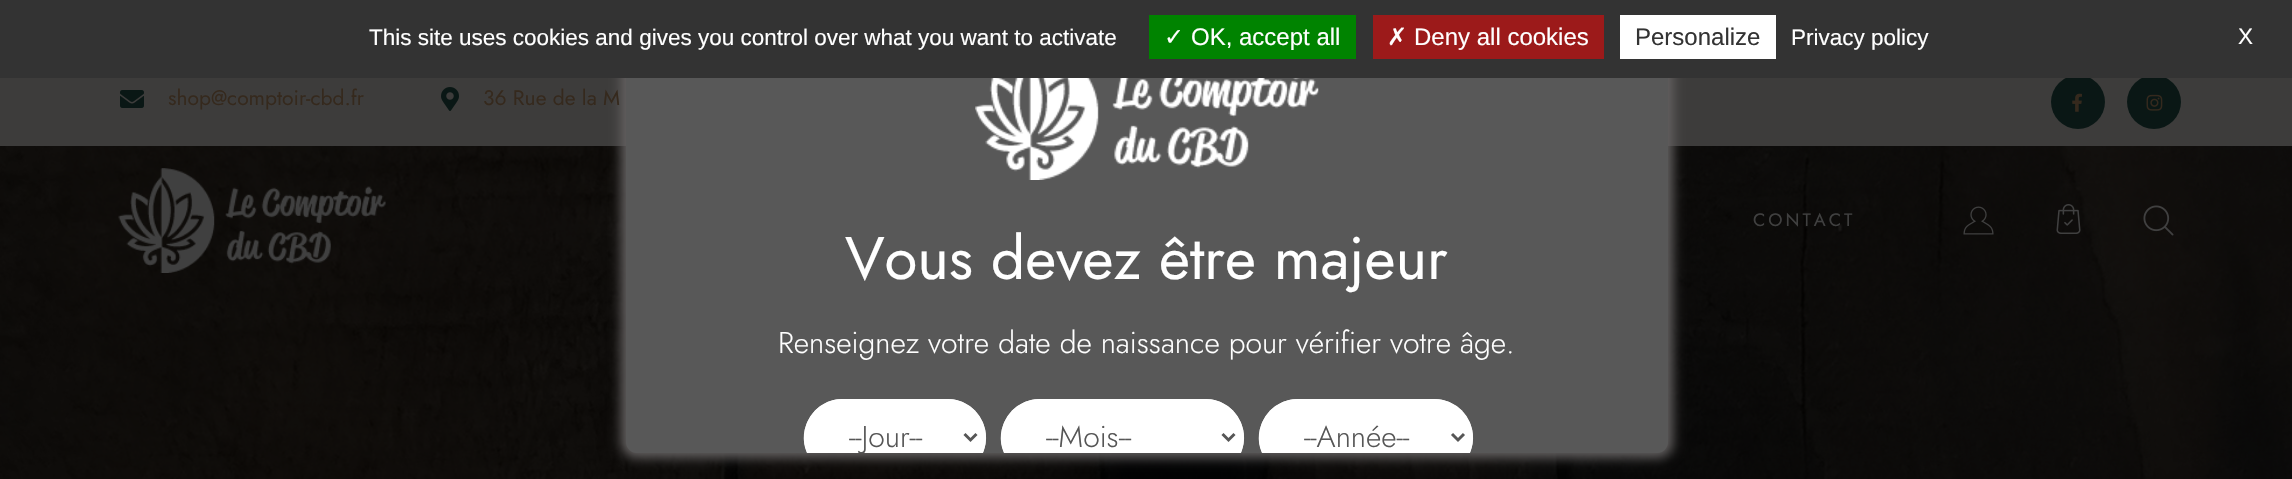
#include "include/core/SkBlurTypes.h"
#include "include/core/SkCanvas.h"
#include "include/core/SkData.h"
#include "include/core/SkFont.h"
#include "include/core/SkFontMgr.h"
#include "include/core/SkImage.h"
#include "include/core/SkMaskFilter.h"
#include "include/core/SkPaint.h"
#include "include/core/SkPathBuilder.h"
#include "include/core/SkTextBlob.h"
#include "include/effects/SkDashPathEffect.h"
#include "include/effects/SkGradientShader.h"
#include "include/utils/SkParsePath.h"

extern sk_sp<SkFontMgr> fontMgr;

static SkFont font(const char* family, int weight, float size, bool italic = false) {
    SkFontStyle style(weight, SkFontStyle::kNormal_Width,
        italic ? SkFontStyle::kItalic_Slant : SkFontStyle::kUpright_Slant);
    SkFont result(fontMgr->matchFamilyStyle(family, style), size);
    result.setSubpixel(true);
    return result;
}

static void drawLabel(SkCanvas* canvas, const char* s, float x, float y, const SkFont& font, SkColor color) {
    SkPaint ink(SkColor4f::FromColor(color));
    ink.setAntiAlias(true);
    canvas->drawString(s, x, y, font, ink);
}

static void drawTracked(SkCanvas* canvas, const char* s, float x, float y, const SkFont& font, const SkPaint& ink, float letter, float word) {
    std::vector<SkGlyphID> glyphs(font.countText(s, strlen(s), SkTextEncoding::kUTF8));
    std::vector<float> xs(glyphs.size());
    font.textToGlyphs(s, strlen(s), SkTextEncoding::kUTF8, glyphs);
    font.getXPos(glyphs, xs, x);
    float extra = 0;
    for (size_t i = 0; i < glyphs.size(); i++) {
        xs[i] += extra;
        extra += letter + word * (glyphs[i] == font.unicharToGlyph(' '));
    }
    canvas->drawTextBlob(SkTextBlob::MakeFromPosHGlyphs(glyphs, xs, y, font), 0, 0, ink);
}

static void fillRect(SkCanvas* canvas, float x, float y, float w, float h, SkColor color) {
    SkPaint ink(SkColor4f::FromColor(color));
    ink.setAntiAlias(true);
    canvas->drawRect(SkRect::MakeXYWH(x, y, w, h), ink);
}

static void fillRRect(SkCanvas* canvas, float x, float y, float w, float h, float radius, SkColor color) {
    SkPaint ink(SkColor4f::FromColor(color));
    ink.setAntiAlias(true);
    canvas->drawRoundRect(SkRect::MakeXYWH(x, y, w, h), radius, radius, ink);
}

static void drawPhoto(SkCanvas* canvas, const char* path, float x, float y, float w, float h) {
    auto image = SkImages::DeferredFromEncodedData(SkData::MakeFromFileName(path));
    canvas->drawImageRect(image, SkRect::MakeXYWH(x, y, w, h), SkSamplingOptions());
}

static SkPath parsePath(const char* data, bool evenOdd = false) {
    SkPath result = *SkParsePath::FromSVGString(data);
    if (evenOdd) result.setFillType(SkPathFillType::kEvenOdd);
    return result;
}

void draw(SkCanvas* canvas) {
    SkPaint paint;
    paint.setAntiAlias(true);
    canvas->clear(0xFFFFFFFF);
    fillRect(canvas, 0, 78, 2292, 68, 0xFF3D3C3B);
    paint.setColor(0xFF0A1715);
    canvas->drawCircle(2078, 102, 27, paint);
    canvas->drawCircle(2154, 102, 27, paint);
    drawPhoto(canvas, "assets/img5.png", 0, 146, 2292, 333);
    paint.setColor(0xFF646161);
    paint.setMaskFilter(SkMaskFilter::MakeBlur(kNormal_SkBlurStyle, 6));
    canvas->drawRoundRect(SkRect::MakeXYWH(621, 23, 1052, 435), 15, 15, paint);
    paint.setMaskFilter(nullptr);
    fillRRect(canvas, 626, 27, 1042, 426, 11, 0xFF585858);
    fillRect(canvas, 0, 0, 2292, 78, 0xFF333333);
    SkFont font1 = font("Liberation Sans", 400, 22.5f);
    drawLabel(canvas, "This site uses cookies and gives you control over what you want to activate", 369, 45, font1, 0xFFFFFFFF);
    fillRect(canvas, 1149, 15, 207, 44, 0xFF008300);
    SkFont font2 = font("DejaVu Sans", 400, 24);
    drawLabel(canvas, "✓", 1164, 45, font2, 0xFFFFFFFF);
    SkFont font3 = font("Liberation Sans", 400, 24);
    drawLabel(canvas, "OK, accept all", 1191, 45, font3, 0xFFFFFFFF);
    fillRect(canvas, 1373, 15, 231, 44, 0xFF9C1A1A);
    drawLabel(canvas, "✗", 1387, 45, font2, 0xFFFFFFFF);
    drawLabel(canvas, "Deny all cookies", 1414, 45, font3, 0xFFFFFFFF);
    fillRect(canvas, 1620, 15, 156, 44, 0xFFFFFFFF);
    drawLabel(canvas, "Personalize", 1635, 45, font3, 0xFF333333);
    drawLabel(canvas, "Privacy policy", 1791, 45, font1, 0xFFFFFFFF);
    drawLabel(canvas, "X", 2238, 44, font1, 0xFFFFFFFF);
    drawPhoto(canvas, "assets/img1.png", 120, 90, 24, 18);
    SkFont font4 = font("Jost", 400, 21);
    drawLabel(canvas, "shop@comptoir-cbd.fr", 168, 105, font4, 0xFF35291D);
    drawPhoto(canvas, "assets/img2.png", 441, 87, 18, 24);
    drawLabel(canvas, "36 Rue de la M", 483, 105, font4, 0xFF35291D);
    drawPhoto(canvas, "assets/img3.png", 2072, 93, 10, 19);
    drawPhoto(canvas, "assets/img4.png", 2146, 94, 17, 17);
    drawPhoto(canvas, "assets/img6.png", 118, 168, 268, 105);
    SkFont font5 = font("Jost", 400, 18);
    paint.setColor(0xFF404040);
    drawTracked(canvas, "CONTACT", 1753, 226, font5, paint, 3, 0);
    drawPhoto(canvas, "assets/img7.png", 1963, 206, 31, 29);
    drawPhoto(canvas, "assets/img8.png", 2056, 204, 25, 30);
    drawPhoto(canvas, "assets/img9.png", 2143, 205, 31, 31);
    drawPhoto(canvas, "assets/img10.png", 975, 78, 344, 102);
    SkFont font6 = font("Jost", 400, 60);
    drawLabel(canvas, "Vous devez être majeur", 845, 279, font6, 0xFFFFFFFF);
    SkFont font7 = font("Jost", 300, 30);
    drawLabel(canvas, "Renseignez votre date de naissance pour vérifier votre âge.", 778, 353, font7, 0xFFFFFFFF);
    canvas->save();
    canvas->clipPath(parsePath("M637 27H1657C1663 27 1668 32 1668 38V442C1668 448 1663 453 1657 453H637C631 453 626 448 626 442V38C626 32 631 27 637 27Z"), true);
    fillRRect(canvas, 804, 399, 182, 77, 38.5f, 0xFFFFFFFF);
    canvas->restore();
    paint.setColor(0xFFFFFFFF);
    canvas->drawPath(parsePath("M842 399C815 399 796 428 807 453H811C808 448 807 443 807 438C807 418 823 402 842 402H948C967 402 983 418 983 438C983 443 982 448 979 453H983C994 428 975 399 948 399Z"), paint);
    paint.setStroke(true);
    paint.setStrokeWidth(3);
    paint.setColor(0xFF565656);
    canvas->drawPath(parsePath("M964.5 434L970.5 440L976.5 434"), paint);
    canvas->save();
    canvas->clipPath(parsePath("M637 27H1657C1663 27 1668 32 1668 38V442C1668 448 1663 453 1657 453H637C631 453 626 448 626 442V38C626 32 631 27 637 27Z"), true);
    drawLabel(canvas, "--Jour--", 849, 447, font7, 0xFF565656);
    fillRRect(canvas, 1001, 399, 243, 77, 38.5f, 0xFFFFFFFF);
    canvas->restore();
    paint.setStroke(false);
    paint.setColor(0xFFFFFFFF);
    canvas->drawPath(parsePath("M1040 399C1012 399 993 428 1004 453H1008C1005 448 1004 443 1004 438C1004 418 1020 402 1040 402H1206C1225 402 1241 418 1241 438C1241 443 1240 448 1237 453H1241C1252 428 1233 399 1206 399Z"), paint);
    paint.setStroke(true);
    paint.setColor(0xFF565656);
    canvas->drawPath(parsePath("M1222.5 434L1228.5 440L1234.5 434"), paint);
    canvas->save();
    canvas->clipRect(SkRect::MakeXYWH(1046, 414, 135, 47));
    drawLabel(canvas, "--Mois--", 1046, 447, font7, 0xFF565656);
    canvas->restore();
    canvas->save();
    canvas->clipPath(parsePath("M637 27H1657C1663 27 1668 32 1668 38V442C1668 448 1663 453 1657 453H637C631 453 626 448 626 442V38C626 32 631 27 637 27Z"), true);
    fillRRect(canvas, 1259, 399, 214, 77, 38.5f, 0xFFFFFFFF);
    canvas->restore();
    paint.setStroke(false);
    paint.setColor(0xFFFFFFFF);
    canvas->drawPath(parsePath("M1298 399C1270 399 1251 428 1262 453H1266C1263 448 1262 443 1262 438C1262 418 1278 402 1298 402H1434C1454 402 1470 418 1470 438C1470 443 1469 448 1466 453H1470C1481 428 1462 399 1434 399Z"), paint);
    paint.setStroke(true);
    paint.setColor(0xFF565656);
    canvas->drawPath(parsePath("M1452 434L1458 440L1464 434"), paint);
    canvas->save();
    canvas->clipRect(SkRect::MakeXYWH(1304, 414, 106, 47));
    drawLabel(canvas, "--Année--", 1304, 447, font7, 0xFF565656);
    canvas->restore();
}
